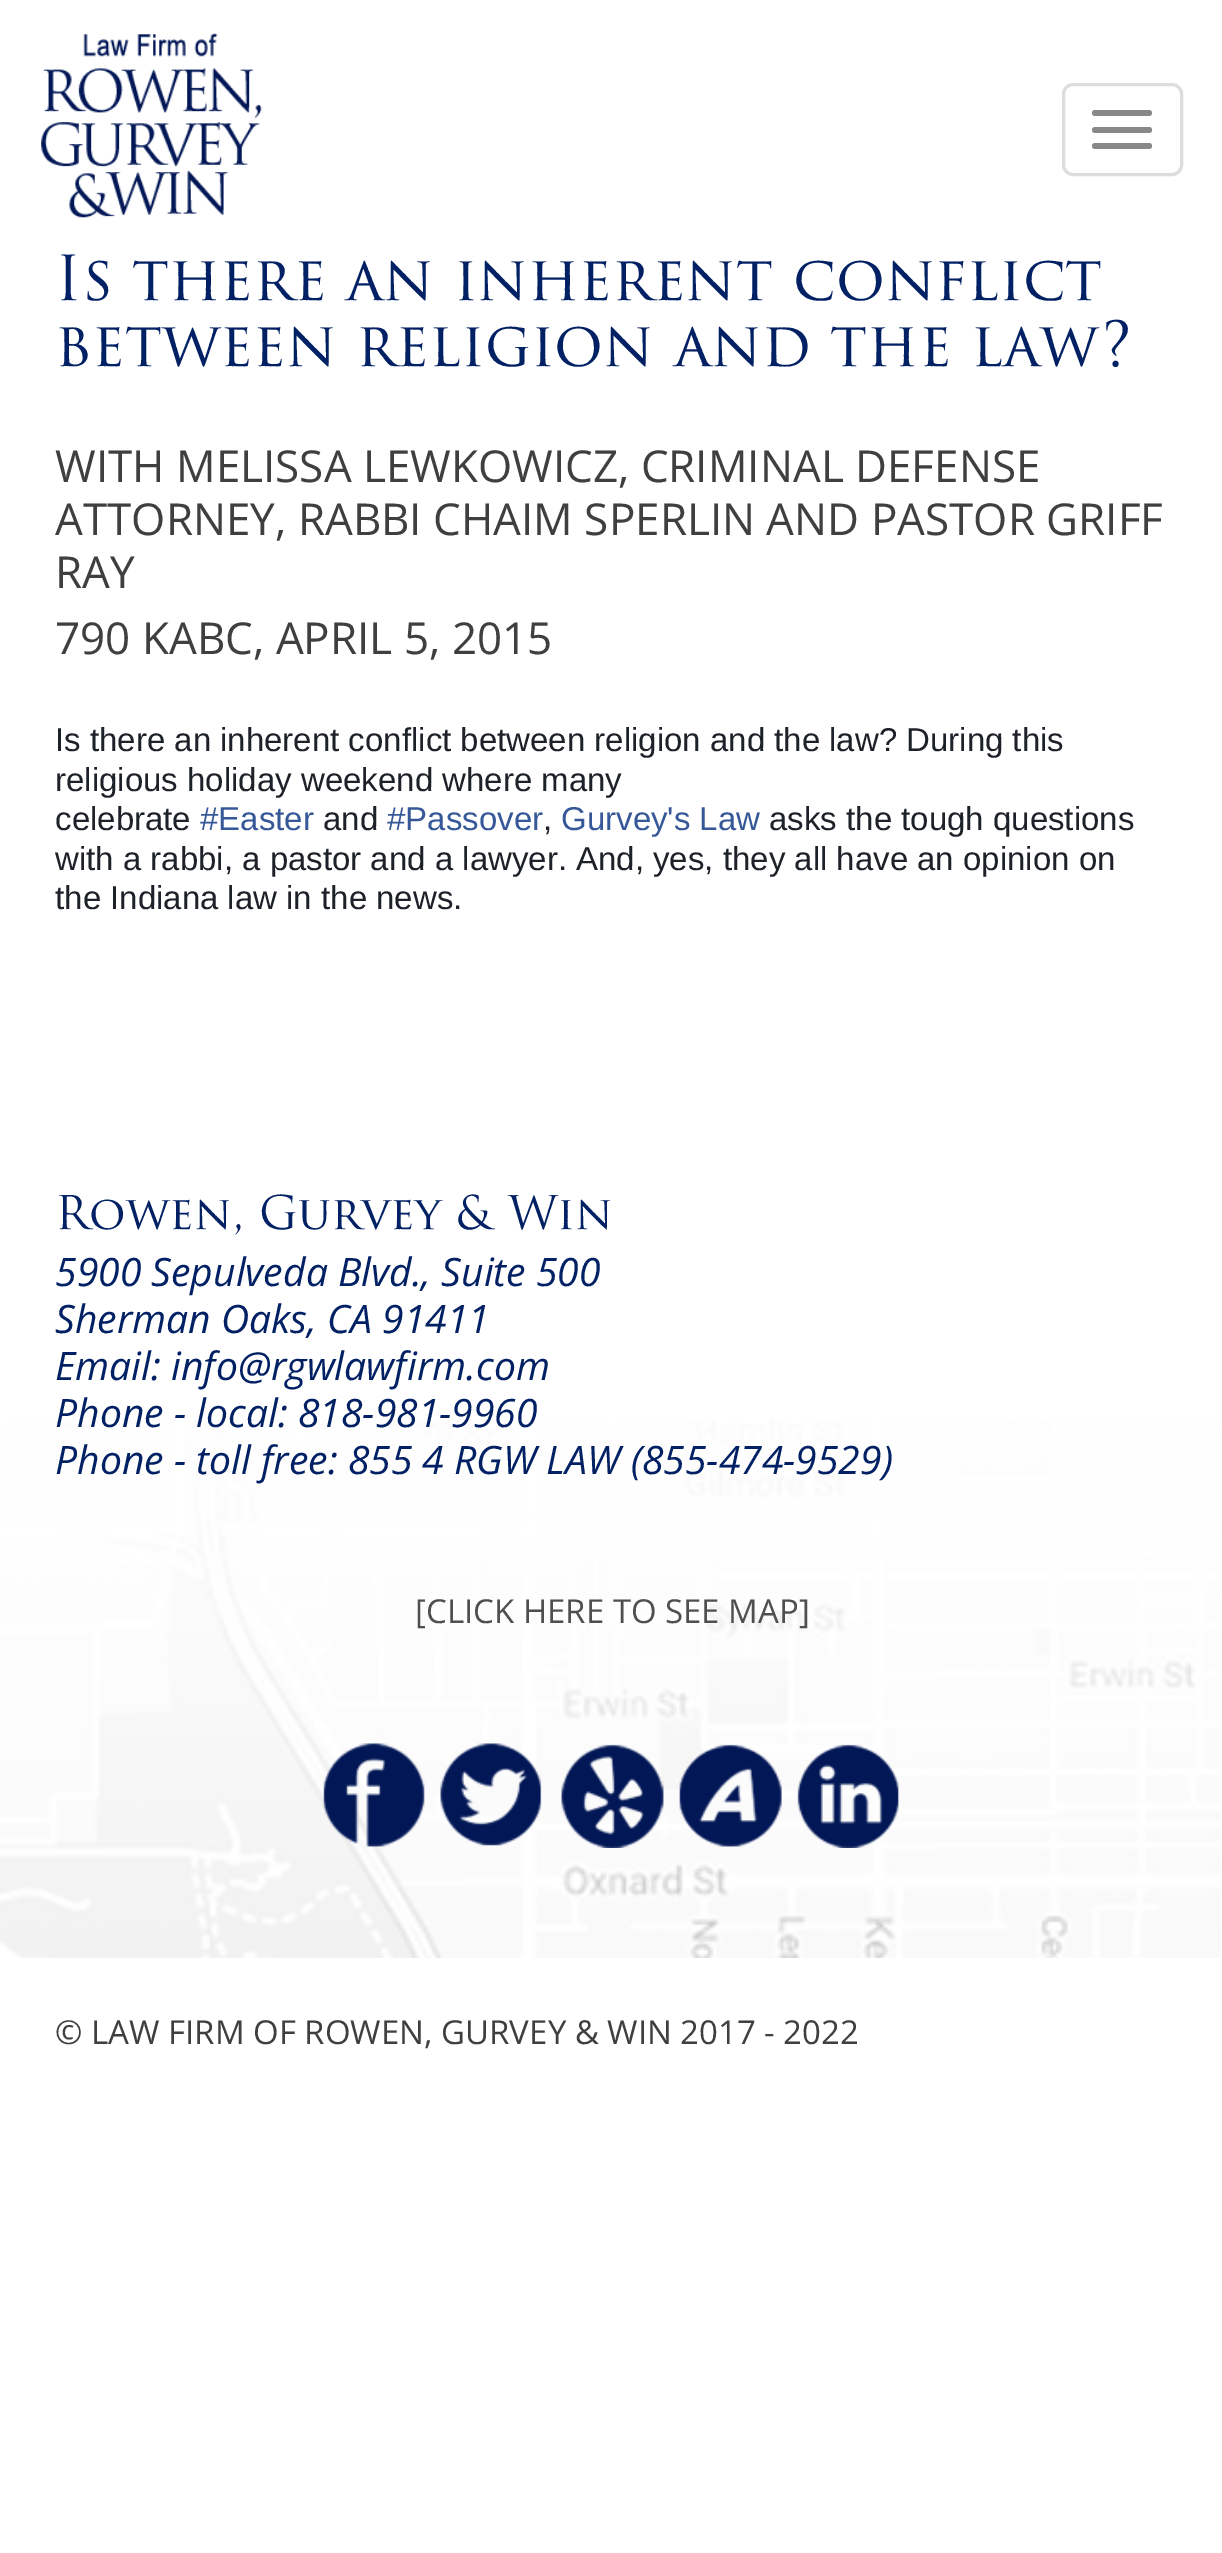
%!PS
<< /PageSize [1222 2553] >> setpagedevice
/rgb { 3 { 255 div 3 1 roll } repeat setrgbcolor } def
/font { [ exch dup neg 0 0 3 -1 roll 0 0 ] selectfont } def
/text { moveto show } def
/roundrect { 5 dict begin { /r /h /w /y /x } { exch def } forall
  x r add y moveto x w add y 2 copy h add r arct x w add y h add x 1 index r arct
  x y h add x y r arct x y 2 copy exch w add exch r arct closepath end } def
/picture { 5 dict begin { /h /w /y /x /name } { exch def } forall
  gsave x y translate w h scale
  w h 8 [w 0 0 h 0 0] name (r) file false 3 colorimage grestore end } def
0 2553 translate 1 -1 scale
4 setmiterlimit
255 255 255 rgb
0 0 1222 2553 rectfill
(img_01.rgb) 41 33 221 185 picture
221 221 221 rgb
3 setlinewidth
1063.5 84.5 118 90 9.5 roundrect stroke
136 136 136 rgb
1092 110 60 6 3 roundrect fill
1092 127 60 6 3 roundrect fill
1092 143 60 6 3 roundrect fill
(img_07.rgb) 0 1420 1221 538 picture
(img_02.rgb) 323 1743 102 104 picture
(img_03.rgb) 440 1743 102 103 picture
(img_04.rgb) 561 1744 103 104 picture
(img_05.rgb) 679 1744 103 103 picture
(img_06.rgb) 797 1744 102 104 picture
/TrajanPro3-Regular 60.5 font
2 33 101 rgb
(Is there an inherent conflict) 55 300 text
(between religion and the law?) 55 366 text
/OpenSans-Regular 44 font
63 63 63 rgb
(WITH MELISSA LEWKOWICZ, CRIMINAL DEFENSE) 55 482 text
(ATTORNEY, RABBI CHAIM SPERLIN AND PASTOR GRIFF) 55 535 text
(RAY) 55 588 text
(790 KABC, APRIL 5, 2015) 55 654 text
/LiberationSans-Regular 33 font
29 33 41 rgb
(Is there an inherent conflict between religion and the law? During this) 55 751 text
(religious holiday weekend where many) 55 791 text
(celebrate) 55 830 text
54 88 153 rgb
(#Easter) 200 830 text
29 33 41 rgb
(and) 323 830 text
54 88 153 rgb
(#Passover) 387 830 text
29 33 41 rgb
(,) 543 830 text
54 88 153 rgb
(Gurvey's Law) 561 830 text
29 33 41 rgb
(asks the tough questions) 769 830 text
(with a rabbi, a pastor and a lawyer. And, yes, they all have an opinion on) 55 870 text
(the Indiana law in the news.) 55 909 text
/TrajanPro3-Regular 45.25 font
2 33 101 rgb
(Rowen, Gurvey & Win) 55 1229 text
/OpenSans-Italic 39.1 font
(5900 Sepulveda Blvd., Suite 500) 55 1286 text
(Sherman Oaks, CA 91411) 55 1333 text
(Email: info@rgwlawfirm.com) 55 1380 text
(Phone - local: 818-981-9960) 55 1427 text
(Phone - toll free: 855 4 RGW LAW \(855-474-9529\)) 55 1474 text
/OpenSans-Regular 33 font
78 79 80 rgb
([CLICK HERE TO SEE MAP]) 415 1623 text
63 63 63 rgb
(© LAW FIRM OF ROWEN, GURVEY & WIN 2017 - 2022) 55 2044 text
showpage
